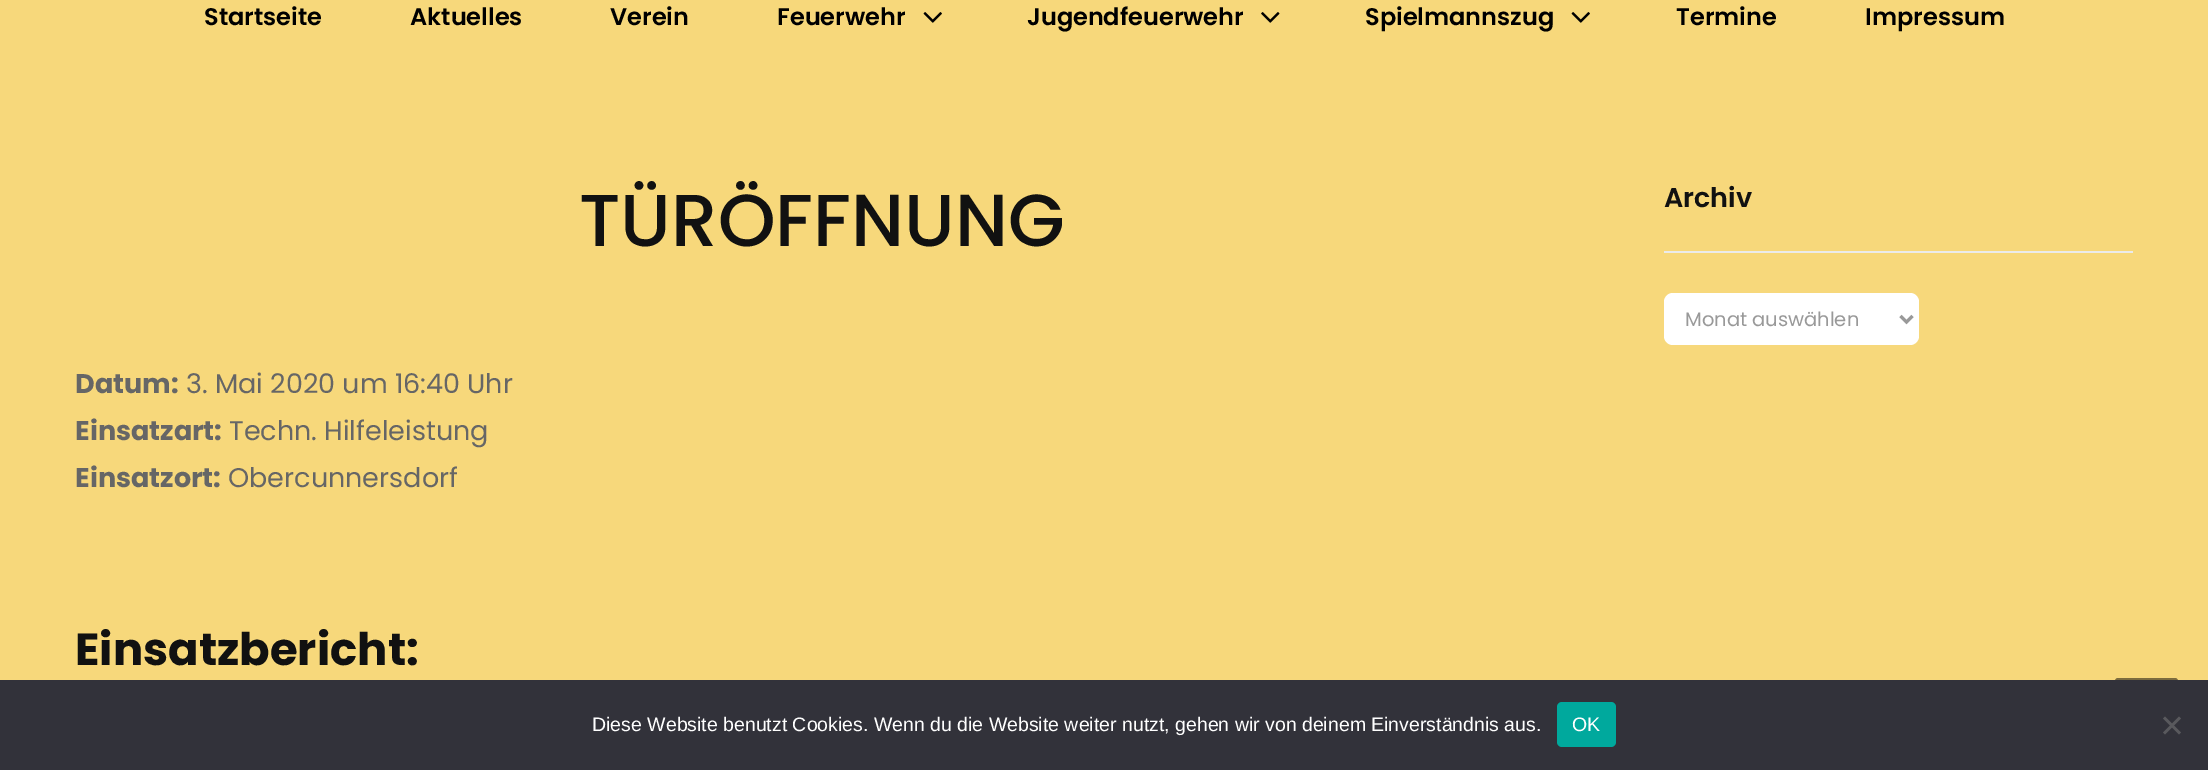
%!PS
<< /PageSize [2208 770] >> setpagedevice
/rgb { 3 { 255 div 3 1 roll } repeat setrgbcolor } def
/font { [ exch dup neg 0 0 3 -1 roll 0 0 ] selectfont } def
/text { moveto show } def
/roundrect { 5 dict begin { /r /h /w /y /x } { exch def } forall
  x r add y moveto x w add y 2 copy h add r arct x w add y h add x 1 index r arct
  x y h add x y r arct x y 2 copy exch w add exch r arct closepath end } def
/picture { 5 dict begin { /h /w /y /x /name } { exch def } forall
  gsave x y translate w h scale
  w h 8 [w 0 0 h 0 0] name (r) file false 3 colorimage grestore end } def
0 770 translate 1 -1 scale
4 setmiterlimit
247 216 123 rgb
0 0 2208 770 rectfill
(img_01.rgb) 923 12 19 11 picture
(img_02.rgb) 1261 12 19 11 picture
(img_01.rgb) 1571 12 19 11 picture
235 235 235 rgb
1664 251 469 2 rectfill
255 255 255 rgb
1664 293 255 52 9 roundrect fill
153 153 153 rgb
3 setlinewidth
1900.5 316 moveto 6 6 rlineto 6 -6 rlineto stroke
124 108 62 rgb
2115 678 63 63 3 roundrect fill
50 50 58 rgb
0 680 2208 90 rectfill
0 169 157 rgb
1557 702 59 45 5 roundrect fill
89 89 93 rgb
2179 716.5 moveto 2 2 rlineto -16 16 rlineto -2 -2 rlineto closepath fill
2163 718.5 moveto 2 -2 rlineto 16 16 rlineto -2 2 rlineto closepath fill
/Poppins-SemiBold 24 font
0 0 0 rgb
(Startseite) 204 25 text
(Aktuelles) 410 25 text
(Verein) 610 25 text
(Feuerwehr) 777 25 text
(Jugendfeuerwehr) 1027 25 text
(Spielmannszug) 1365 25 text
(Termine) 1676 25 text
(Impressum) 1865 25 text
/Poppins-Medium 73.5 font
17 17 17 rgb
(TÜRÖFFNUNG) 579 246 text
/Poppins-Bold 27 font
102 102 102 rgb
(Datum:) 75 393 text
/Poppins-Regular 27 font
(3. Mai 2020 um 16:40 Uhr) 186 393 text
/Poppins-Bold 27 font
(Einsatzart:) 75 440 text
/Poppins-Regular 27 font
(Techn. Hilfeleistung) 229 440 text
/Poppins-Bold 27 font
(Einsatzort:) 75 487 text
/Poppins-Regular 27 font
(Obercunnersdorf) 228 487 text
/Poppins-Bold 45 font
17 17 17 rgb
(Einsatzbericht:) 75 665 text
/Poppins-SemiBold 27 font
(Archiv) 1664 207 text
/Poppins-Regular 19.5 font
153 153 153 rgb
(Monat auswählen) 1685 326 text
/LiberationSans-Regular 19.5 font
255 255 255 rgb
(Diese Website benutzt Cookies. Wenn du die Website weiter nutzt, gehen wir von deinem Einverständnis aus.) 592 731 text
(OK) 1572 731 text
showpage
